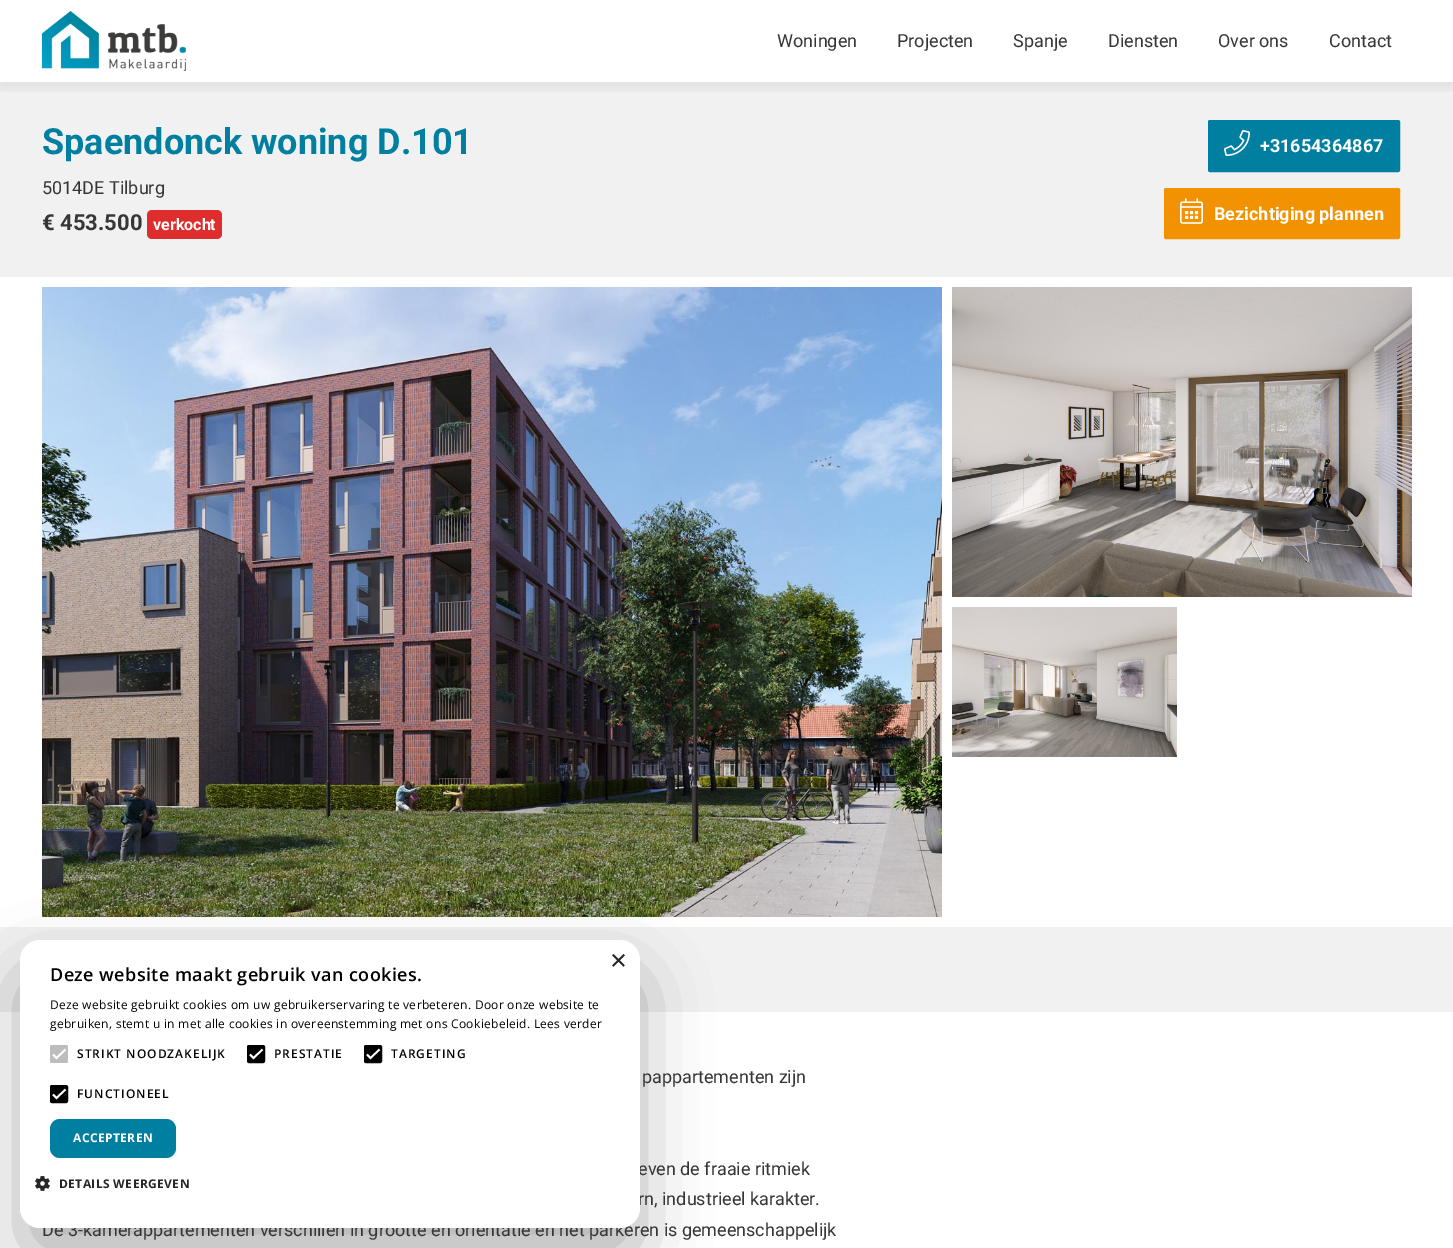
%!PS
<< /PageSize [1453 1248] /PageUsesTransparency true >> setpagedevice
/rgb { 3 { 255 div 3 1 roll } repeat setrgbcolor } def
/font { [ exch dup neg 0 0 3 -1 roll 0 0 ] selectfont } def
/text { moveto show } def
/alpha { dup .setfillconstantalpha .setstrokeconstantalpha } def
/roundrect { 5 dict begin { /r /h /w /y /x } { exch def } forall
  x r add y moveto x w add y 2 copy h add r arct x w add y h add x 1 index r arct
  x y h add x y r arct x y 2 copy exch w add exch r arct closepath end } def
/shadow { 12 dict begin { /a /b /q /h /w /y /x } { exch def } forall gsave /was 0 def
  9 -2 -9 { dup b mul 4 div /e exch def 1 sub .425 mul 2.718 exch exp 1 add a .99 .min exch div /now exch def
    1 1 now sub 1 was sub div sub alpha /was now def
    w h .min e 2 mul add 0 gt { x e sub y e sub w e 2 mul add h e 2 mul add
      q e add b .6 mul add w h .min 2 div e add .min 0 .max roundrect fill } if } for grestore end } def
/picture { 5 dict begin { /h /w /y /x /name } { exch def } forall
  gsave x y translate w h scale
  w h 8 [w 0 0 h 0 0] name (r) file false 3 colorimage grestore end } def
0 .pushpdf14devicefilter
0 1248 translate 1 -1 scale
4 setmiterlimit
255 255 255 rgb
0 0 1453 1248 rectfill
241 241 241 rgb
0 82 1453 195 rectfill
gsave
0 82 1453 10 rectclip
0 0 0 rgb
0 2 1453 82 0 10 0.1 shadow
grestore
(img_01.rgb) 41 11 145 60 picture
223 45 45 rgb
147 210 75 29 5 roundrect fill
0 127 160 rgb
1209 121 190 50 1 roundrect gsave fill grestore
2 setlinewidth
stroke
(img_02.rgb) 1224 130 26 26 picture
243 146 0 rgb
1165 189 234 49 1 roundrect gsave fill grestore
stroke
(img_03.rgb) 1180 198 23 26 picture
(img_04.rgb) 42 287 900 630 picture
(img_05.rgb) 952 287 460 310 picture
(img_06.rgb) 952 607 225 150 picture
241 241 241 rgb
0 927 1453 85 rectfill
0 0 0 rgb
20 972 620 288 20 34 0.3 shadow
/Roboto-Regular 18 font
54 54 54 rgb
(Woningen) 777 47 text
(Projecten) 897 47 text
(Spanje) 1013 47 text
(Diensten) 1108 47 text
(Over ons) 1218 47 text
(Contact) 1329 47 text
/Roboto-Bold 36 font
0 127 160 rgb
(Spaendonck woning D.101) 42 154 text
/Roboto-Regular 18 font
54 54 54 rgb
(5014DE Tilburg) 42 194 text
/Roboto-Bold 22 font
(€ 453.500) 42 230 text
/Roboto-Bold 16 font
255 255 255 rgb
(verkocht) 153 230 text
/Roboto-Bold 18 font
(+31654364867) 1260 152 text
(Bezichtiging plannen) 1214 220 text
/Roboto-Regular 18 font
54 54 54 rgb
(pappartementen zijn) 642 1083 text
(even de fraaie ritmiek) 638 1175 text
(rn, industrieel karakter.) 638 1205 text
(De 3-kamerappartementen verschillen in grootte en oriëntatie en het parkeren is gemeenschappelijk) 42 1236 text
255 255 255 rgb
20 940 620 288 20 roundrect fill
/LiberationSans-Regular 29 font
38 38 38 rgb
(×) 610 970 text
/OpenSans-SemiBold 18 font
0 0 0 rgb
50 981 moveto 0.4 0 (Deze website maakt gebruik van cookies.) ashow
/OpenSans-Regular 12 font
50 1009 moveto 0.3 0 (Deze website gebruikt cookies om uw gebruikerservaring te verbeteren. Door onze website te) ashow
50 1028 moveto 0.3 0 (gebruiken, stemt u in met alle cookies in overeenstemming met ons Cookiebeleid. Lees verder) ashow
189 189 189 rgb
50 1045 18 18 2 roundrect fill
255 255 255 rgb
1.8 setlinewidth
53 1054.5 moveto 3.5 3.5 rlineto 9 -8.5 rlineto stroke
/OpenSans-SemiBold 12 font
0 0 0 rgb
77 1058 moveto 1 0 (STRIKT NOODZAKELIJK) ashow
248 1046 16 16 1 roundrect gsave fill grestore
2 setlinewidth
stroke
255 255 255 rgb
1.8 setlinewidth
250 1054.5 moveto 3.5 3.5 rlineto 9 -8.5 rlineto stroke
0 0 0 rgb
274 1058 moveto 1 0 (PRESTATIE) ashow
365 1046 16 16 1 roundrect gsave fill grestore
2 setlinewidth
stroke
255 255 255 rgb
1.8 setlinewidth
367 1054.5 moveto 3.5 3.5 rlineto 9 -8.5 rlineto stroke
0 0 0 rgb
391 1058 moveto 1 0 (TARGETING) ashow
51 1086 16 16 1 roundrect gsave fill grestore
2 setlinewidth
stroke
255 255 255 rgb
1.8 setlinewidth
53 1094.5 moveto 3.5 3.5 rlineto 9 -8.5 rlineto stroke
0 0 0 rgb
77 1098 moveto 1 0 (FUNCTIONEEL) ashow
0 127 160 rgb
50 1119 126 39 10 roundrect fill
/OpenSans-Bold 12 font
255 255 255 rgb
73 1142 moveto 0.4 0 (ACCEPTEREN) ashow
(img_07.rgb) 35 1176 15 15 picture
38 38 38 rgb
59 1188 moveto 0.4 0 (DETAILS WEERGEVEN) ashow
.poppdf14devicefilter showpage
